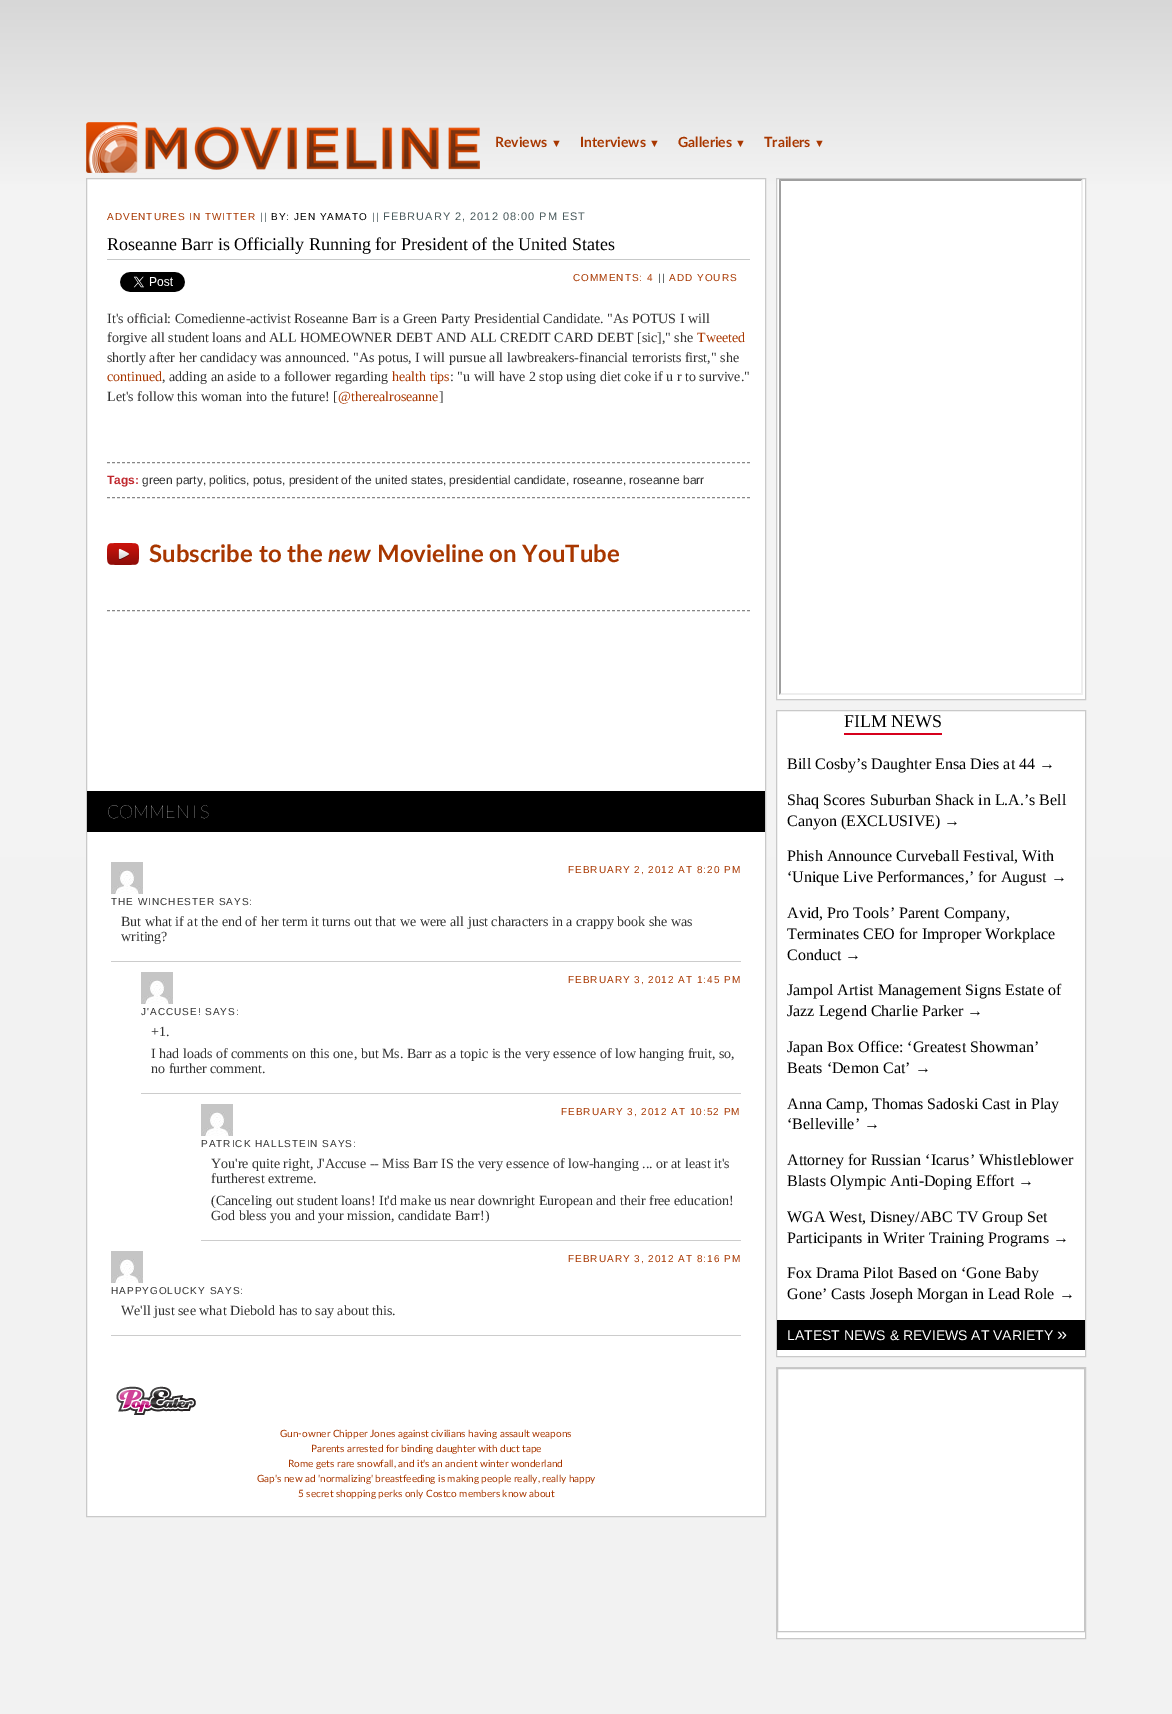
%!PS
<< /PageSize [1172 1714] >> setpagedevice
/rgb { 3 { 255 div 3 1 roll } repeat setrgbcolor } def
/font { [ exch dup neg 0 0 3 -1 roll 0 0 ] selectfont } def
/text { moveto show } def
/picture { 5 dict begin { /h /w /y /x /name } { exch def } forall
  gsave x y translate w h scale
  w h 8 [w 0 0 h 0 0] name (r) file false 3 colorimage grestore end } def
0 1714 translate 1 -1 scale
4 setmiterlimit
255 255 255 rgb
0 0 1172 1714 rectfill
gsave 0 0 moveto 1172 0 rlineto 0 1714 rlineto -1172 0 rlineto closepath clip newpath
<< /ShadingType 2 /ColorSpace /DeviceRGB /Coords [586 0 586 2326] /Extend [true true] /Function << /FunctionType 3 /Domain [0 1] /Functions [<< /FunctionType 2 /Domain [0 1] /C0 [0.843 0.843 0.843] /C1 [0.953 0.953 0.953] /N 1 >> << /FunctionType 2 /Domain [0 1] /C0 [0.953 0.953 0.953] /C1 [0.945 0.945 0.945] /N 1 >>] /Bounds [0.08] /Encode [0 1 0 1] >> >> shfill grestore
(img_01.rgb) 86 122 394 51 picture
86.5 178.5 moveto 679 0 rlineto 0 1338 rlineto -679 0 rlineto closepath gsave fill grestore
201 201 201 rgb
stroke
199 201 201 rgb
107 259 643 1 rectfill
(img_02.rgb) 120 272 65 20 picture
135 135 135 rgb
[3 2] 0 setdash
107 462.5 moveto 643 0 rlineto stroke
107 497.5 moveto 643 0 rlineto stroke
107 610.5 moveto 643 0 rlineto stroke
(img_03.rgb) 107 543 32 22 picture
0 0 0 rgb
87 791 678 41 rectfill
204 204 204 rgb
111 961 630 1 rectfill
(img_04.rgb) 111 862 32 32 picture
141 1093 600 1 rectfill
(img_04.rgb) 141 972 32 32 picture
201 1240 540 1 rectfill
(img_04.rgb) 201 1104 32 32 picture
111 1335 630 1 rectfill
(img_04.rgb) 111 1251 32 32 picture
(img_05.rgb) 116 1386 80 29 picture
255 255 255 rgb
776.5 178.5 moveto 309 0 rlineto 0 521 rlineto -309 0 rlineto closepath gsave fill grestore
201 201 201 rgb
[] 0 setdash
stroke
159 159 159 rgb
779 179 moveto 304 0 rlineto -2 2 rlineto -300 0 rlineto closepath fill
238 238 238 rgb
1083 179 moveto 0 516 rlineto -2 -2 rlineto 0 -512 rlineto closepath fill
1083 695 moveto -304 0 rlineto 2 -2 rlineto 300 0 rlineto closepath fill
159 159 159 rgb
779 695 moveto 0 -516 rlineto 2 2 rlineto 0 512 rlineto closepath fill
255 255 255 rgb
776.5 710.5 moveto 309 0 rlineto 0 646 rlineto -309 0 rlineto closepath gsave fill grestore
201 201 201 rgb
stroke
214 0 28 rgb
844 733 98 2 rectfill
0 0 0 rgb
777 1320 308 30 rectfill
255 255 255 rgb
777 1369 308 269 rectfill
201 201 201 rgb
776.5 1367.5 309 271 rectstroke
198 198 198 rgb
777.5 1368.5 307 263 rectstroke
/Lato-Bold 14 font
168 55 0 rgb
(Reviews) 495 147 text
/LiberationSans-Bold 11 font
(▼) 551 147 text
/Lato-Bold 14 font
(Interviews) 580 147 text
/LiberationSans-Bold 11 font
(▼) 649 147 text
/Lato-Bold 14 font
(Galleries) 678 147 text
/LiberationSans-Bold 11 font
(▼) 735 147 text
/Lato-Bold 14 font
(Trailers) 764 147 text
/LiberationSans-Bold 11 font
(▼) 814 147 text
/LiberationSans-Regular 10 font
107 220 moveto 1 0 (ADVENTURES IN TWITTER) ashow
73 90 92 rgb
260 220 moveto 1 0 (||) ashow
0 0 0 rgb
271 220 moveto 1 0 (BY: JEN YAMATO) ashow
73 90 92 rgb
372 220 moveto 1 0 (||) ashow
/LiberationSans-Regular 11 font
383 220 moveto 1 0 (FEBRUARY 2, 2012 08:00 PM EST) ashow
/LiberationSerif-Regular 18 font
0 0 0 rgb
(Roseanne Barr is Officially Running for President of the United States) 107 250 text
/LiberationSans-Regular 10 font
168 55 0 rgb
573 281 moveto 1 0 (COMMENTS: 4) ashow
42 52 53 rgb
658 281 moveto 1 0 (||) ashow
168 55 0 rgb
669 281 moveto 1 0 (ADD YOURS) ashow
/LiberationSerif-Regular 14 font
51 51 51 rgb
(It's official: Comedienne-activist Roseanne Barr is a Green Party Presidential Candidate. "As POTUS I will) 107 323 text
(forgive all student loans and ALL HOMEOWNER DEBT AND ALL CREDIT CARD DEBT [sic]," she) 107 342 text
168 55 0 rgb
(Tweeted) 697 342 text
51 51 51 rgb
(shortly after her candidacy was announced. "As potus, I will pursue all lawbreakers-financial terrorists first," she) 107 362 text
168 55 0 rgb
(continued) 107 381 text
51 51 51 rgb
(, adding an aside to a follower regarding) 162 381 text
168 55 0 rgb
(health tips) 392 381 text
51 51 51 rgb
(: "u will have 2 stop using diet coke if u r to survive.") 450 381 text
(Let's follow this woman into the future! [) 107 401 text
168 55 0 rgb
(@therealroseanne) 338 401 text
51 51 51 rgb
(]) 439 401 text
/LiberationSans-Bold 12 font
192 39 45 rgb
(Tags:) 107 484 text
/LiberationSans-Regular 12 font
51 51 51 rgb
(green party, politics, potus, president of the united states, presidential candidate, roseanne, roseanne barr) 142 484 text
/Lato-Bold 24 font
168 55 0 rgb
(Subscribe to the) 149 562 text
/Lato-BoldItalic 24 font
(new) 328 562 text
/Lato-Bold 24 font
(Movieline on YouTube) 377 562 text
/Lato-ExtraLight 18 font
255 255 255 rgb
(COMMENTS) 107 818 text
/LiberationSans-Regular 10 font
168 55 0 rgb
568 873 moveto 1 0 (FEBRUARY 2, 2012 AT 8:20 PM) ashow
51 51 51 rgb
111 905 moveto 1 0 (THE WINCHESTER SAYS:) ashow
/LiberationSerif-Regular 14 font
(But what if at the end of her term it turns out that we were all just characters in a crappy book she was) 121 926 text
(writing?) 121 941 text
/LiberationSans-Regular 10 font
168 55 0 rgb
568 983 moveto 1 0 (FEBRUARY 3, 2012 AT 1:45 PM) ashow
51 51 51 rgb
141 1015 moveto 1 0 (J'ACCUSE! SAYS:) ashow
/LiberationSerif-Regular 14 font
(+1.) 151 1036 text
(I had loads of comments on this one, but Ms. Barr as a topic is the very essence of low hanging fruit, so,) 151 1058 text
(no further comment.) 151 1073 text
/LiberationSans-Regular 10 font
168 55 0 rgb
561 1115 moveto 1 0 (FEBRUARY 3, 2012 AT 10:52 PM) ashow
51 51 51 rgb
201 1147 moveto 1 0 (PATRICK HALLSTEIN SAYS:) ashow
/LiberationSerif-Regular 14 font
(You're quite right, J'Accuse -- Miss Barr IS the very essence of low-hanging ... or at least it's) 211 1168 text
(furtherest extreme.) 211 1183 text
(\(Canceling out student loans! It'd make us near downright European and their free education!) 211 1205 text
(God bless you and your mission, candidate Barr!\)) 211 1220 text
/LiberationSans-Regular 10 font
168 55 0 rgb
568 1262 moveto 1 0 (FEBRUARY 3, 2012 AT 8:16 PM) ashow
51 51 51 rgb
111 1294 moveto 1 0 (HAPPYGOLUCKY SAYS:) ashow
/LiberationSerif-Regular 14 font
(We'll just see what Diebold has to say about this.) 121 1315 text
/Lato-Regular 10 font
168 55 0 rgb
(Gun-owner Chipper Jones against civilians having assault weapons) 280 1437 text
(Parents arrested for binding daughter with duct tape) 311 1452 text
(Rome gets rare snowfall, and it's an ancient winter wonderland) 288 1467 text
(Gap's new ad 'normalizing' breastfeeding is making people really, really happy) 257 1482 text
(5 secret shopping perks only Costco members know about) 298 1497 text
/LiberationSerif-Regular 18 font
0 0 0 rgb
(FILM NEWS) 844 727 text
/LiberationSerif-Regular 16 font
(Bill Cosby’s Daughter Ensa Dies at 44 →) 787 769 text
(Shaq Scores Suburban Shack in L.A.’s Bell) 787 805 text
(Canyon \(EXCLUSIVE\) →) 787 826 text
(Phish Announce Curveball Festival, With) 787 861 text
(‘Unique Live Performances,’ for August →) 787 882 text
(Avid, Pro Tools’ Parent Company,) 787 918 text
(Terminates CEO for Improper Workplace) 787 939 text
(Conduct →) 787 960 text
(Jampol Artist Management Signs Estate of) 787 995 text
(Jazz Legend Charlie Parker →) 787 1016 text
(Japan Box Office: ‘Greatest Showman’) 787 1052 text
(Beats ‘Demon Cat’ →) 787 1073 text
(Anna Camp, Thomas Sadoski Cast in Play) 787 1109 text
(‘Belleville’ →) 787 1129 text
(Attorney for Russian ‘Icarus’ Whistleblower) 787 1165 text
(Blasts Olympic Anti-Doping Effort →) 787 1186 text
(WGA West, Disney/ABC TV Group Set) 787 1222 text
(Participants in Writer Training Programs →) 787 1243 text
(Fox Drama Pilot Based on ‘Gone Baby) 787 1278 text
(Gone’ Casts Joseph Morgan in Lead Role →) 787 1299 text
/LiberationSans-Regular 14 font
255 255 255 rgb
(LATEST NEWS & REVIEWS AT VARIETY) 787 1340 text
/LiberationSans-Regular 18 font
(») 1057 1340 text
showpage
